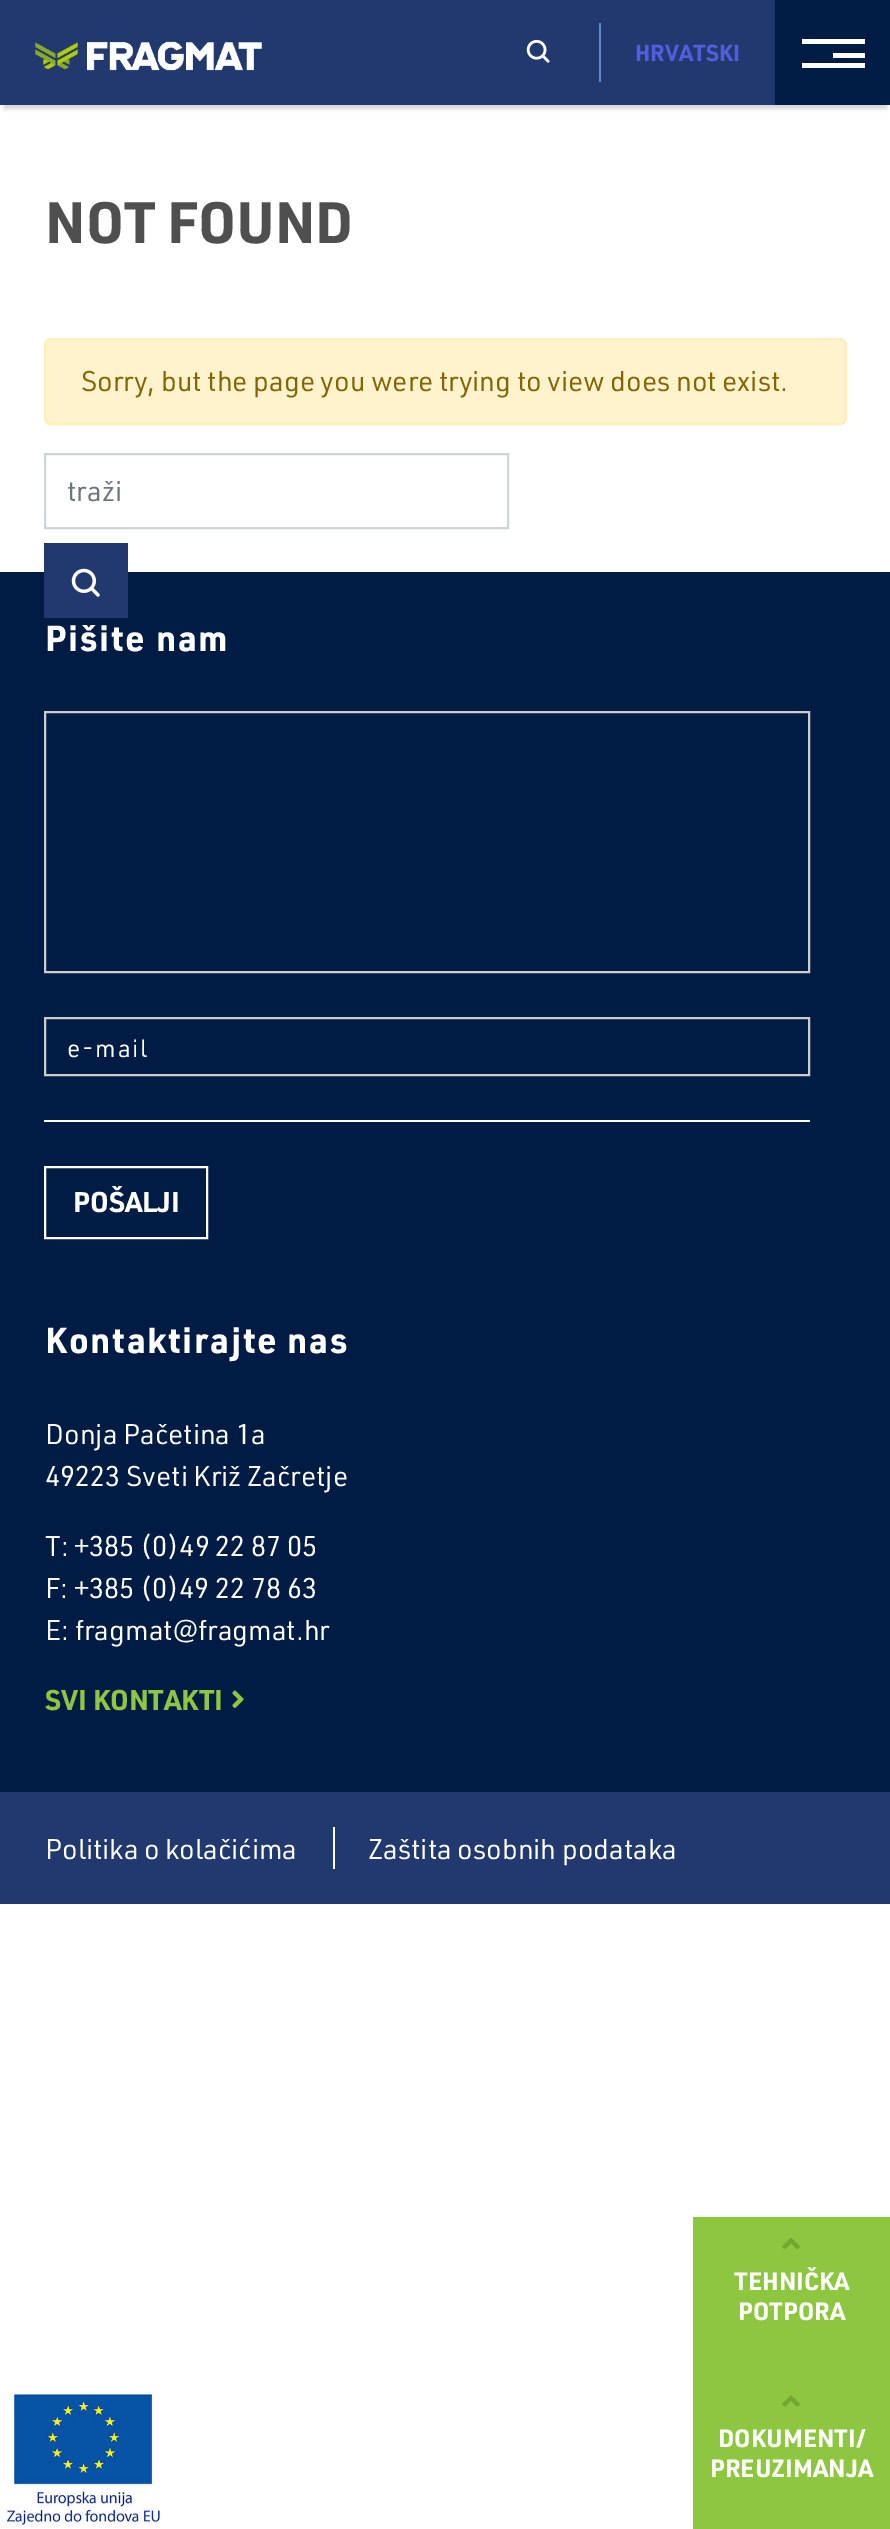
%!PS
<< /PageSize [890 2529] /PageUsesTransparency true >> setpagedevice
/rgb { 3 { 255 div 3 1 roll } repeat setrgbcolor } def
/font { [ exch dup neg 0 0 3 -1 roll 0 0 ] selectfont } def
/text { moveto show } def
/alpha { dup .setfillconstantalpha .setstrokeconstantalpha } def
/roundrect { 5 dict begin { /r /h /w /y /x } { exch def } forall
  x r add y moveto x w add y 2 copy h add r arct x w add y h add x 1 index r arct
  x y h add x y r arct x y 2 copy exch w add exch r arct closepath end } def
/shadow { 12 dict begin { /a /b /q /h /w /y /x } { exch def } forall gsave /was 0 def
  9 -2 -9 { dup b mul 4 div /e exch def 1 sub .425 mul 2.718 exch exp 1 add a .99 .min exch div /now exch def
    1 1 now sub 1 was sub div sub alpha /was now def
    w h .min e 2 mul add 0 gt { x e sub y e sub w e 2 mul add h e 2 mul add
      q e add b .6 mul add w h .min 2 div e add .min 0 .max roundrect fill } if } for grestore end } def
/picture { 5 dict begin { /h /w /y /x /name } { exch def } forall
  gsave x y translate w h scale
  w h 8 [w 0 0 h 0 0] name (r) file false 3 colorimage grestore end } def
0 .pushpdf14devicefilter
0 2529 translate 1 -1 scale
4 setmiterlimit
255 255 255 rgb
0 0 890 2529 rectfill
0 0 0 rgb
4 11 883 98 0 2 0.16 shadow
33 57 110 rgb
0 0 775 105 rectfill
(img_01.rgb) 35 41 227 30 picture
(img_02.rgb) 526 39 24 24 picture
92 136 204 rgb
599 23 2 59 rectfill
0 27 68 rgb
775 0 115 105 rectfill
255 255 255 rgb
802 39 63 5 rectfill
833 53 32 5 rectfill
802 63 63 5 rectfill
255 243 205 rgb
45 339 801 85 6 roundrect gsave fill grestore
255 238 186 rgb
2 setlinewidth
stroke
206 212 218 rgb
45 454 463 74 rectstroke
0 27 68 rgb
0 572 890 1220 rectfill
33 57 110 rgb
44 543 84 75 rectfill
(img_03.rgb) 71 568 29 29 picture
0 25 63 rgb
46 713 763 1 rectfill
204 204 204 rgb
45 712 764 260 rectstroke
255 255 255 rgb
44 1120 766 2 rectfill
0 25 63 rgb
46 1019 763 2 rectfill
204 204 204 rgb
45 1018 764 57 rectstroke
255 255 255 rgb
45 1167 162 71 rectstroke
(img_04.rgb) 232 1690 12 18 picture
33 57 110 rgb
0 1792 890 112 rectfill
255 255 255 rgb
333 1827 2 42 rectfill
(img_05.rgb) 5 2392 156 133 picture
141 198 63 rgb
693 2217 197 312 rectfill
(img_06.rgb) 782 2238 18 11 picture
(img_07.rgb) 782 2395 18 12 picture
/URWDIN-Bold 22.75 font
82 93 220 rgb
(HRVATSKI) 635 61 text
/URWDIN-Bold 57 font
79 79 79 rgb
(NOT FOUND) 45 243 text
/URWDIN-Regular 28 font
133 100 4 rgb
(Sorry, but the page you were trying to view does not exist.) 81 391 text
108 117 125 rgb
(traži) 67 501 text
/URWDIN-Bold 35.5 font
255 255 255 rgb
45 651 moveto 1.75 0 (Pišite nam) ashow
/URWDIN-Regular 24.5 font
67 1057 moveto 1.75 0 (e-mail) ashow
/URWDIN-Bold 28 font
(POŠALJI) 73 1212 text
/URWDIN-Bold 35.5 font
45 1353 moveto 1.75 0 (Kontaktirajte nas) ashow
/URWDIN-Regular 28 font
(Donja Pačetina 1a) 45 1444 text
(49223 Sveti Križ Začretje) 45 1486 text
(T: +385 \(0\)49 22 87 05) 45 1556 text
(F: +385 \(0\)49 22 78 63) 45 1598 text
(E: fragmat@fragmat.hr) 45 1640 text
/URWDIN-Bold 28 font
141 198 63 rgb
(SVI KONTAKTI) 45 1710 text
/URWDIN-Regular 28 font
255 255 255 rgb
(Politika o kolačićima) 45 1859 text
(Zaštita osobnih podataka) 368 1859 text
/URWDIN-Bold 24.5 font
(TEHNIČKA) 734 2290 text
(POTPORA) 738 2320 text
(DOKUMENTI/) 718 2447 text
(PREUZIMANJA) 710 2477 text
.poppdf14devicefilter showpage
